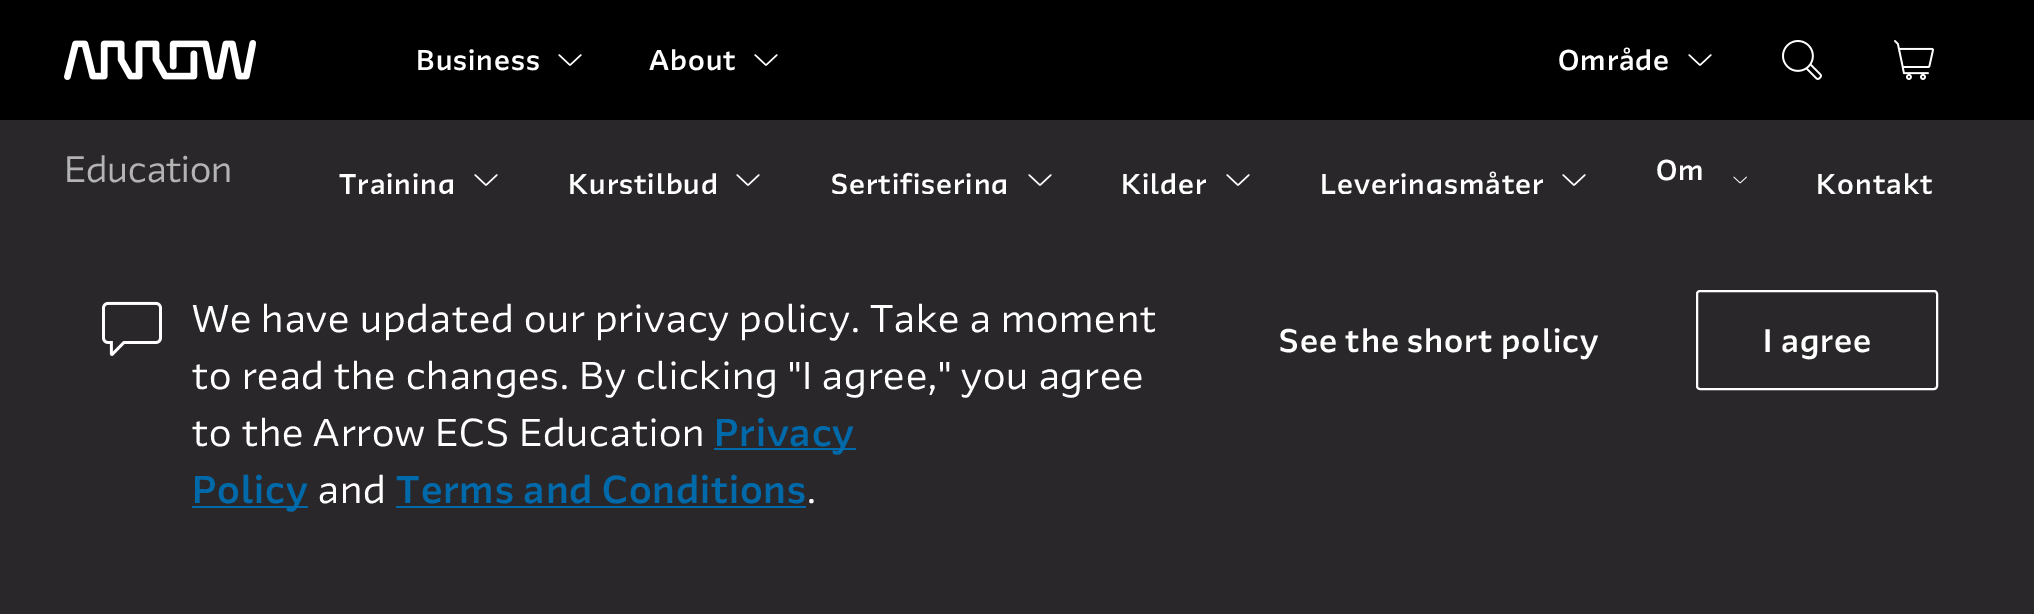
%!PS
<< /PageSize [2034 614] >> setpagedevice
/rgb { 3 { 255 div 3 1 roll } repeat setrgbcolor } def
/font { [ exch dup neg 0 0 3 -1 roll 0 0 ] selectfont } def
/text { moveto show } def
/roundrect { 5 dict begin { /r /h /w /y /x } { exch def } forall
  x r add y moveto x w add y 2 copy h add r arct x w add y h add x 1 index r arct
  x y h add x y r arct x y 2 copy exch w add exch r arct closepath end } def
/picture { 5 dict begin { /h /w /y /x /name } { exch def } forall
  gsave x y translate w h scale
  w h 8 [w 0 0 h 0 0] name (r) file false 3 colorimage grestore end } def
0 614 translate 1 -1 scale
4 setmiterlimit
41 39 42 rgb
0 0 2034 614 rectfill
0 0 0 rgb
0 0 2034 120 rectfill
(img_01.rgb) 64 40 192 40 picture
(img_02.rgb) 558 54 24 12 picture
(img_02.rgb) 754 54 24 12 picture
(img_02.rgb) 1688 54 24 12 picture
(img_03.rgb) 1782 40 40 40 picture
(img_04.rgb) 1894 40 40 40 picture
(img_05.rgb) 474 174 24 12 picture
(img_05.rgb) 736 174 24 12 picture
(img_05.rgb) 1028 174 24 12 picture
(img_05.rgb) 1226 174 24 12 picture
(img_05.rgb) 1562 174 24 12 picture
(img_06.rgb) 1733 176 14 8 picture
(img_07.rgb) 102 301 60 55 picture
0 105 170 rgb
714 448 142 2 rectfill
192 506 116 2 rectfill
396 506 410 2 rectfill
255 255 255 rgb
2 setlinewidth
1697 291 240 98 3 roundrect stroke
/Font-Medium 28 font
416 70 moveto 1 0 (Business) ashow
649 70 moveto 1 0 (About) ashow
1558 70 moveto 1 0 (Område) ashow
/Font-Regular 36 font
179 179 179 rgb
(Education) 64 182 text
/Font-Medium 28 font
255 255 255 rgb
339 194 moveto 1 0 (Training) ashow
568 194 moveto 1 0 (Kurstilbud) ashow
831 194 moveto 1 0 (Sertifisering) ashow
1121 194 moveto 1 0 (Kilder) ashow
1320 194 moveto 1 0 (Leveringsmåter) ashow
1656 180 moveto 1 0 (Om) ashow
1816 194 moveto 1 0 (Kontakt) ashow
41 39 42 rgb
372 194 1558 7 rectfill
/Font-Regular 38 font
255 255 255 rgb
192 332 moveto 1 0 (We have updated our privacy policy. Take a moment) ashow
192 389 moveto 1 0 (to read the changes. By clicking "I agree," you agree) ashow
192 446 moveto 1 0 (to the Arrow ECS Education) ashow
/Font-Medium 38 font
0 105 170 rgb
714 446 moveto 1 0 (Privacy) ashow
192 503 moveto 1 0 (Policy) ashow
/Font-Regular 38 font
255 255 255 rgb
318 503 moveto 1 0 (and) ashow
/Font-Medium 38 font
0 105 170 rgb
396 503 moveto 1 0 (Terms and Conditions) ashow
/Font-Regular 38 font
255 255 255 rgb
807 503 moveto 1 0 (.) ashow
/Font-Medium 32 font
1279 352 moveto 1 0 (See the short policy) ashow
1763 352 moveto 1 0 (I agree) ashow
showpage
